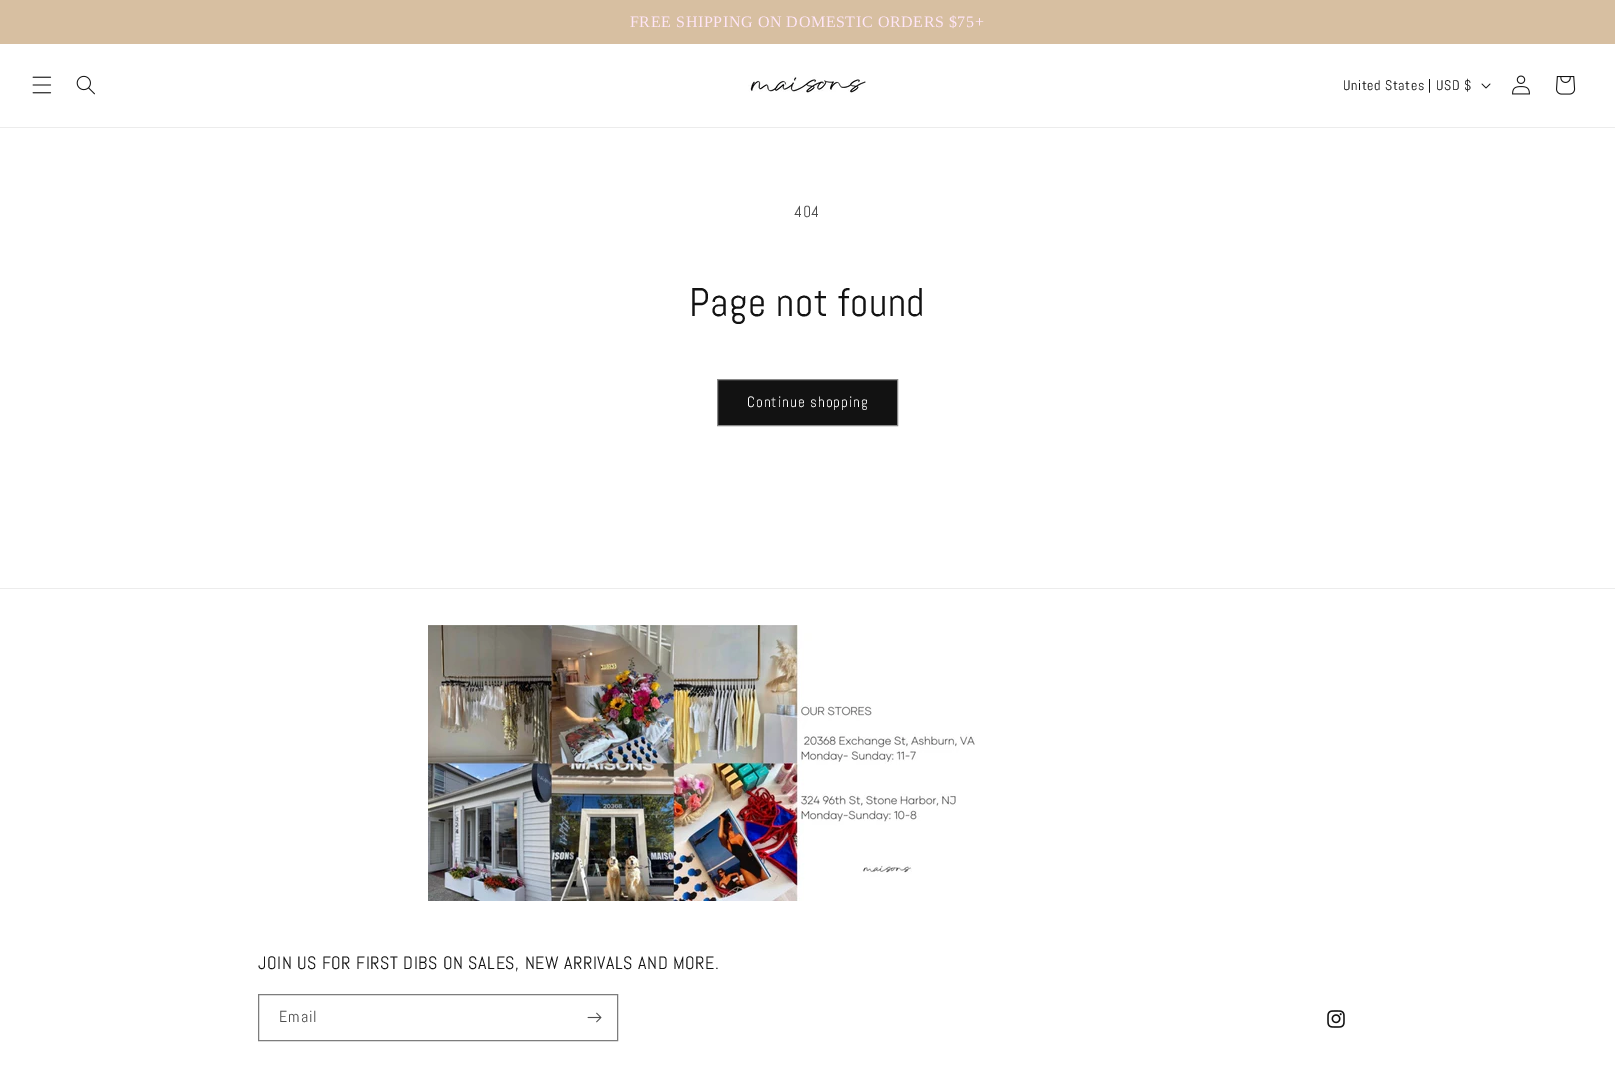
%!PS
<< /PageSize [1615 1067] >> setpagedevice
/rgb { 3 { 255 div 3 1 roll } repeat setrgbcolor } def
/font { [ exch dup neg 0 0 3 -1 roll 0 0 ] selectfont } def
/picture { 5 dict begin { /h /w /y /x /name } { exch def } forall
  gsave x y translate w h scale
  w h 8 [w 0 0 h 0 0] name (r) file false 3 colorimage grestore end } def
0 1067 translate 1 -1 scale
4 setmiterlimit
255 255 255 rgb
0 0 1615 1067 rectfill
215 191 161 rgb
0 0 1615 44 rectfill
236 236 236 rgb
0 127 1615 1 rectfill
(img_01.rgb) 32 76 20 18 picture
(img_02.rgb) 76 75 19 20 picture
(img_03.rgb) 748 76 118 17 picture
(img_04.rgb) 1481 83 10 6 picture
(img_05.rgb) 1512 75 18 20 picture
(img_06.rgb) 1556 76 20 19 picture
18 18 18 rgb
718 380 179 45 rectfill
137 137 137 rgb
717.5 379.5 180 46 rectstroke
236 236 236 rgb
0 588 1615 1 rectfill
(img_07.rgb) 428 625 548 276 picture
125 125 125 rgb
258.5 994.5 359 46 rectstroke
(img_08.rgb) 587 1012 15 11 picture
(img_09.rgb) 1327 1010 18 18 picture
/LiberationSerif-Regular 16 font
255 230 248 rgb
630 27 moveto 0.6 0 (FREE SHIPPING ON DOMESTIC ORDERS $75+) ashow
/Abel-Regular 14 font
18 18 18 rgb
1343 90 moveto 0.6 0 (United States | USD $) ashow
/Abel-Regular 16 font
77 77 77 rgb
794 217 moveto 0.6 0 (404) ashow
/Abel-Regular 40 font
18 18 18 rgb
689 316 moveto 0.6 0 (Page not found) ashow
/Abel-Regular 15 font
255 255 255 rgb
747 407 moveto 1 0 (Continue shopping) ashow
/Abel-Regular 18 font
18 18 18 rgb
258 969 moveto 0.6 0 (JOIN US FOR FIRST DIBS ON SALES, NEW ARRIVALS AND MORE.) ashow
/Abel-Regular 16 font
77 77 77 rgb
279 1022 moveto 1 0 (Email) ashow
showpage
